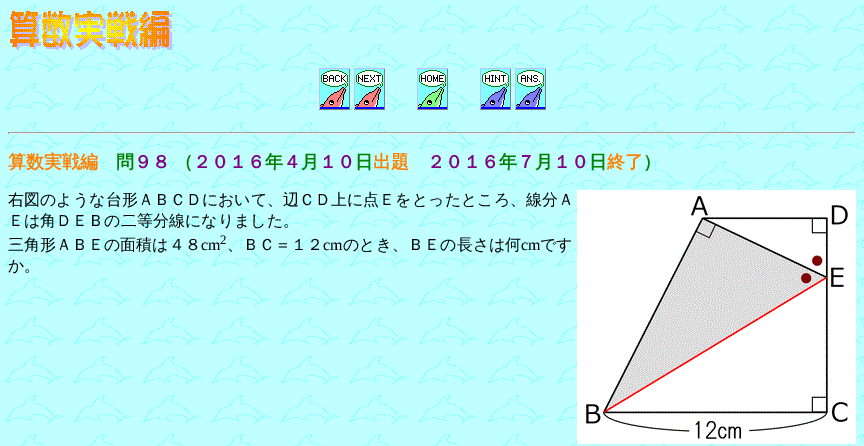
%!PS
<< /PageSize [864 446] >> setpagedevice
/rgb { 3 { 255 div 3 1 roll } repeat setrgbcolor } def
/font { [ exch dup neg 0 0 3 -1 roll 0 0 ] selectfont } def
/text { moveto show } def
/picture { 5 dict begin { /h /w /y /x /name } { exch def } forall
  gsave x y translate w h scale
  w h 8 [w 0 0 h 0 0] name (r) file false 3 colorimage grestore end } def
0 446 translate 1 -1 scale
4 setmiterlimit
255 255 255 rgb
0 0 864 446 rectfill
(img_01.rgb) 0 0 864 446 picture
(img_02.rgb) 10 11 162 39 picture
(img_03.rgb) 319 68 31 42 picture
(img_04.rgb) 354 68 31 42 picture
(img_05.rgb) 417 68 31 42 picture
(img_06.rgb) 480 68 31 42 picture
(img_07.rgb) 515 68 31 42 picture
159 159 159 rgb
8 132 848 1 rectfill
238 238 238 rgb
855 132 1 2 rectfill
8 133 848 1 rectfill
159 159 159 rgb
8 132 1 2 rectfill
(img_08.rgb) 577 190 279 254 picture
/WenQuanYiZenHei-Bold 18 font
255 128 0 rgb
(算数実戦編) 8 168 text
0 128 0 rgb
(問) 116 168 text
128 0 128 rgb
(９８) 134 168 text
0 128 0 rgb
(（) 175 168 text
128 0 128 rgb
(２０１６) 193 168 text
0 128 0 rgb
(年) 265 168 text
128 0 128 rgb
(４) 283 168 text
0 128 0 rgb
(月) 301 168 text
128 0 128 rgb
(１０) 319 168 text
0 128 0 rgb
(日) 355 168 text
255 128 0 rgb
(出題) 373 168 text
128 0 128 rgb
(２０１６) 427 168 text
0 128 0 rgb
(年) 499 168 text
128 0 128 rgb
(７) 517 168 text
0 128 0 rgb
(月) 535 168 text
128 0 128 rgb
(１０) 553 168 text
0 128 0 rgb
(日) 589 168 text
255 128 0 rgb
(終了) 607 168 text
0 128 0 rgb
(）) 643 168 text
/WenQuanYiZenHei-Medium 16 font
0 0 0 rgb
(右図のような台形ＡＢＣＤにおいて、辺ＣＤ上に点Ｅをとったところ、線分Ａ) 8 205 text
(Ｅは角ＤＥＢの二等分線になりました。) 8 226 text
(三角形ＡＢＥの面積は４８) 8 250 text
/LiberationSerif-Regular 16 font
(cm) 201 250 text
/LiberationSerif-Regular 13 font
(2) 220 244 text
/WenQuanYiZenHei-Medium 16 font
(、ＢＣ＝１２) 227 250 text
/LiberationSerif-Regular 16 font
(cm) 323 250 text
/WenQuanYiZenHei-Medium 16 font
(のとき、ＢＥの長さは何) 343 250 text
/LiberationSerif-Regular 16 font
(cm) 521 250 text
/WenQuanYiZenHei-Medium 16 font
(です) 540 250 text
(か。) 8 271 text
showpage
